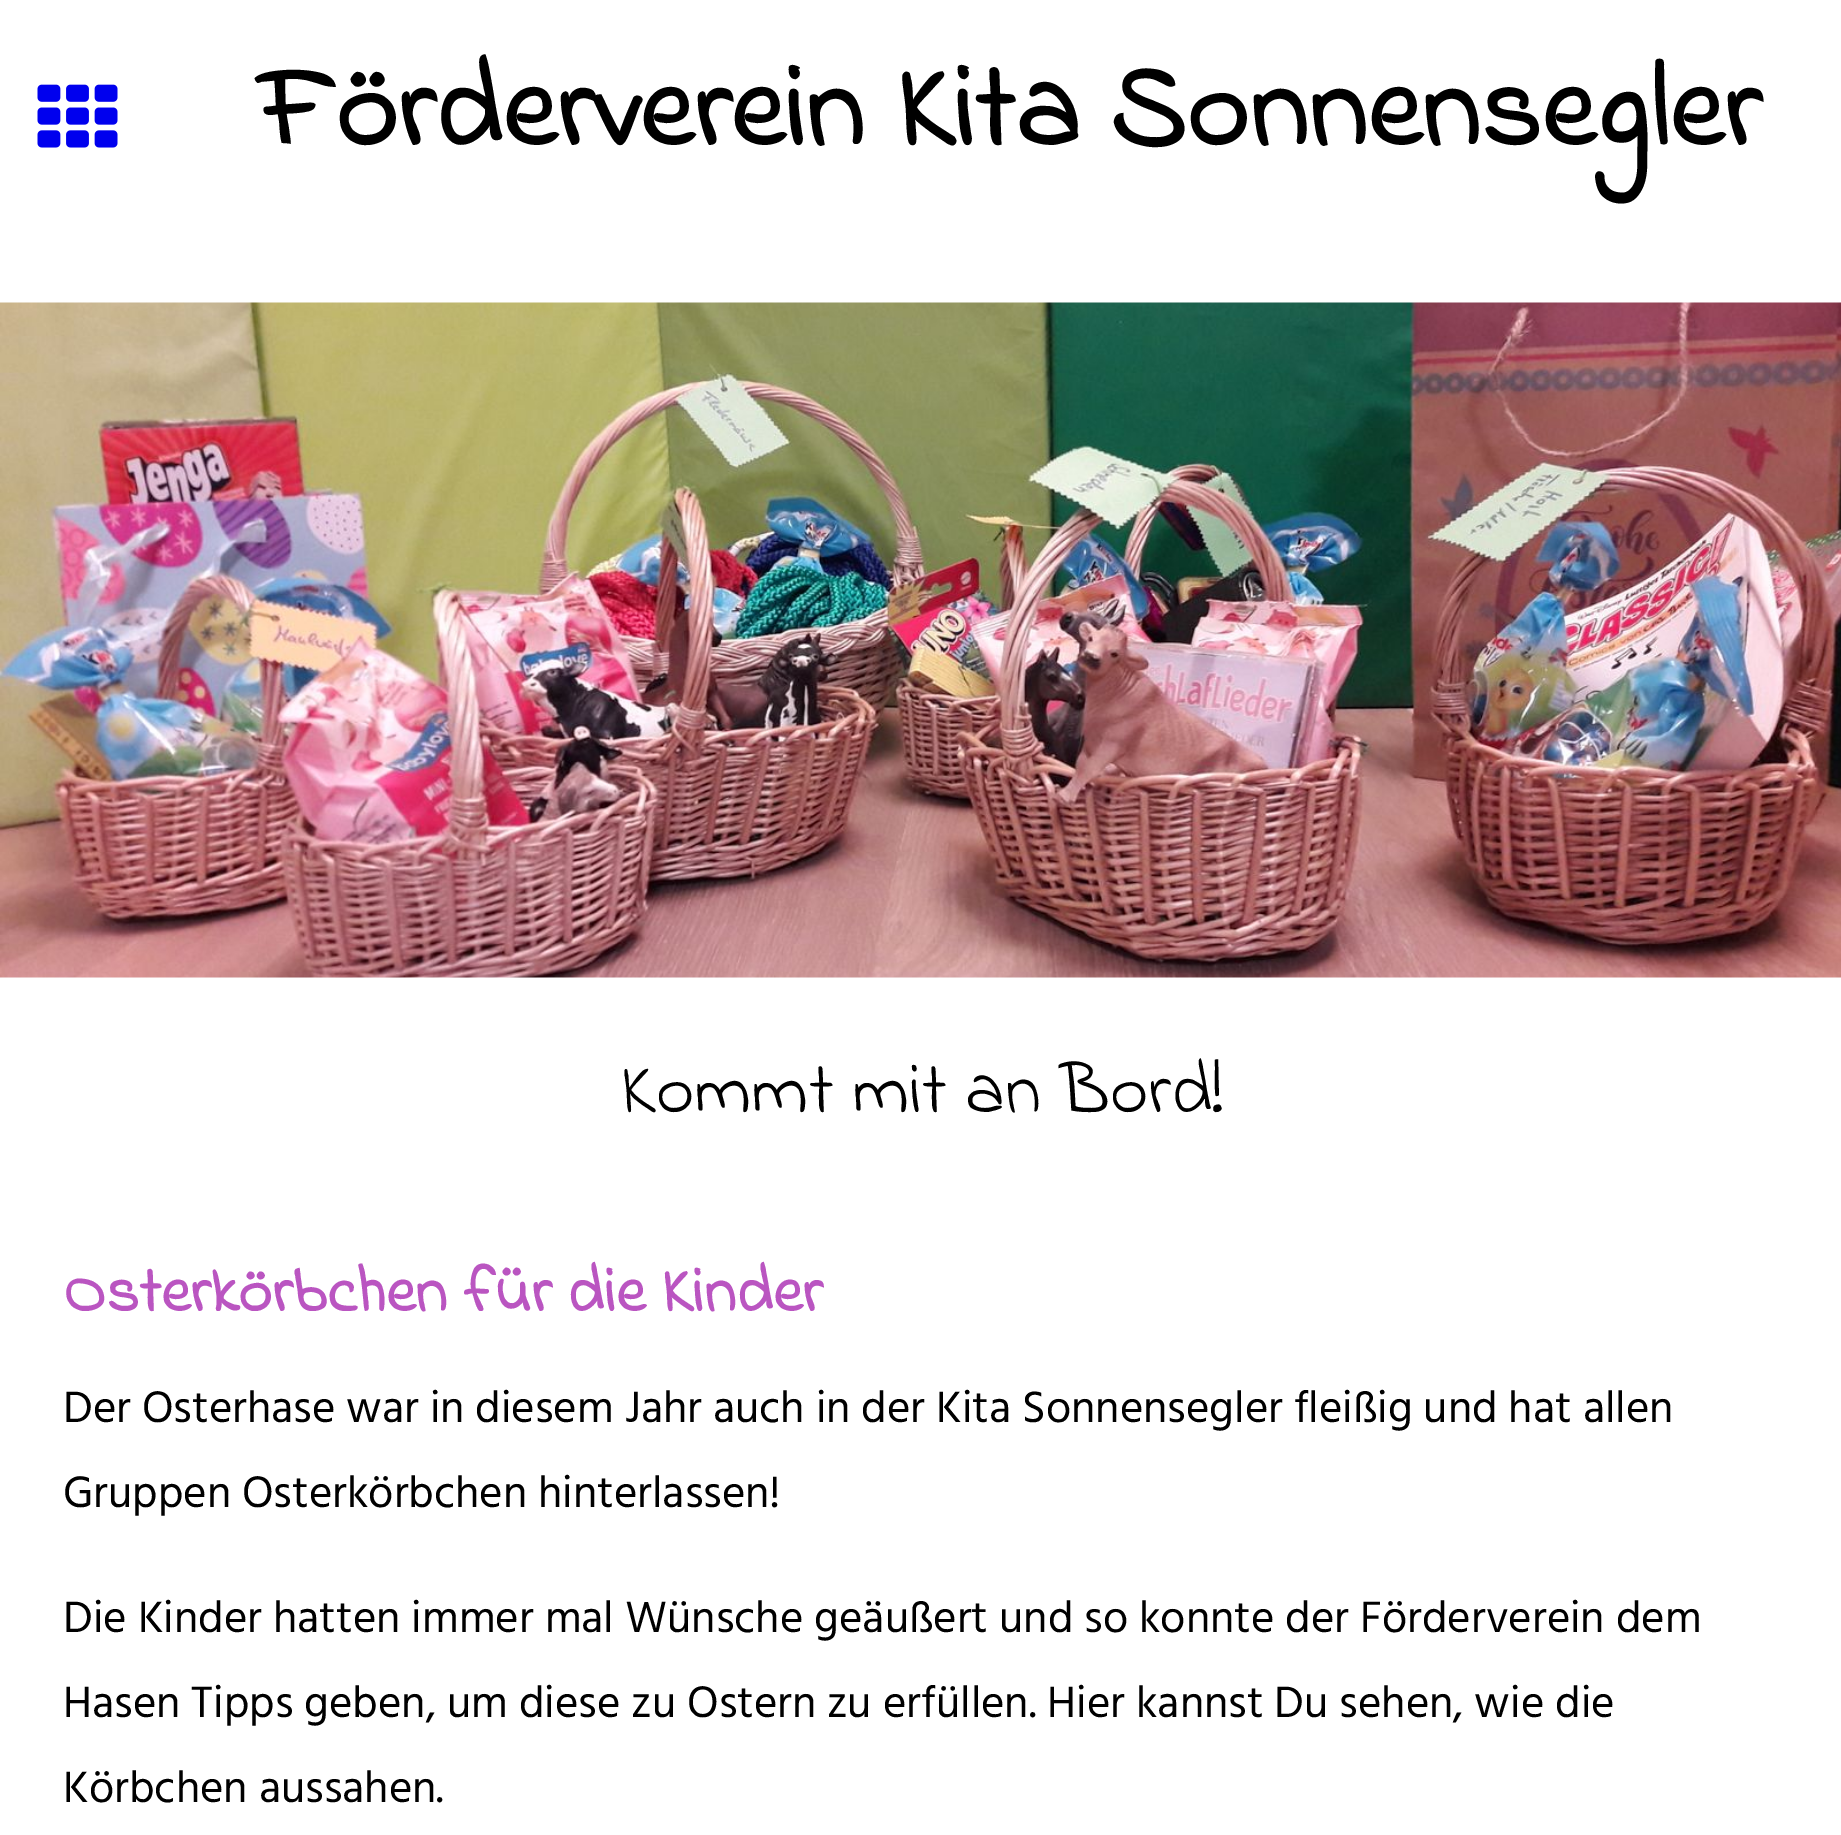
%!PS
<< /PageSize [1841 1835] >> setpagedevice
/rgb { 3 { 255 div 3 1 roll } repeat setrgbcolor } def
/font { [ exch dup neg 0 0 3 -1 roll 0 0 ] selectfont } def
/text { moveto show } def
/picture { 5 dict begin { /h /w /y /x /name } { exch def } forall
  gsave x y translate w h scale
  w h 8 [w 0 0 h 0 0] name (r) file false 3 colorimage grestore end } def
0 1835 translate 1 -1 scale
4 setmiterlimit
255 255 255 rgb
0 0 1841 1835 rectfill
(img_01.rgb) 37 84 81 64 picture
(img_02.rgb) 0 302 1841 676 picture
/IndieFlower-Bold 120 font
0 0 0 rgb
(Förderverein Kita Sonnensegler) 257 145 text
/IndieFlower-Regular 73.75 font
(Kommt mit an Bord!) 620 1112 text
/IndieFlower-Bold 65 font
186 85 193 rgb
(Osterkörbchen für die Kinder) 63 1311 text
/HindGuntur-Regular 45 font
0 0 0 rgb
(Der Osterhase war in diesem Jahr auch in der Kita Sonnensegler fleißig und hat allen) 63 1422 text
(Gruppen Osterkörbchen hinterlassen!) 63 1507 text
(Die Kinder hatten immer mal Wünsche geäußert und so konnte der Förderverein dem) 63 1632 text
(Hasen Tipps geben, um diese zu Ostern zu erfüllen. Hier kannst Du sehen, wie die) 63 1717 text
(Körbchen aussahen.) 63 1802 text
showpage
